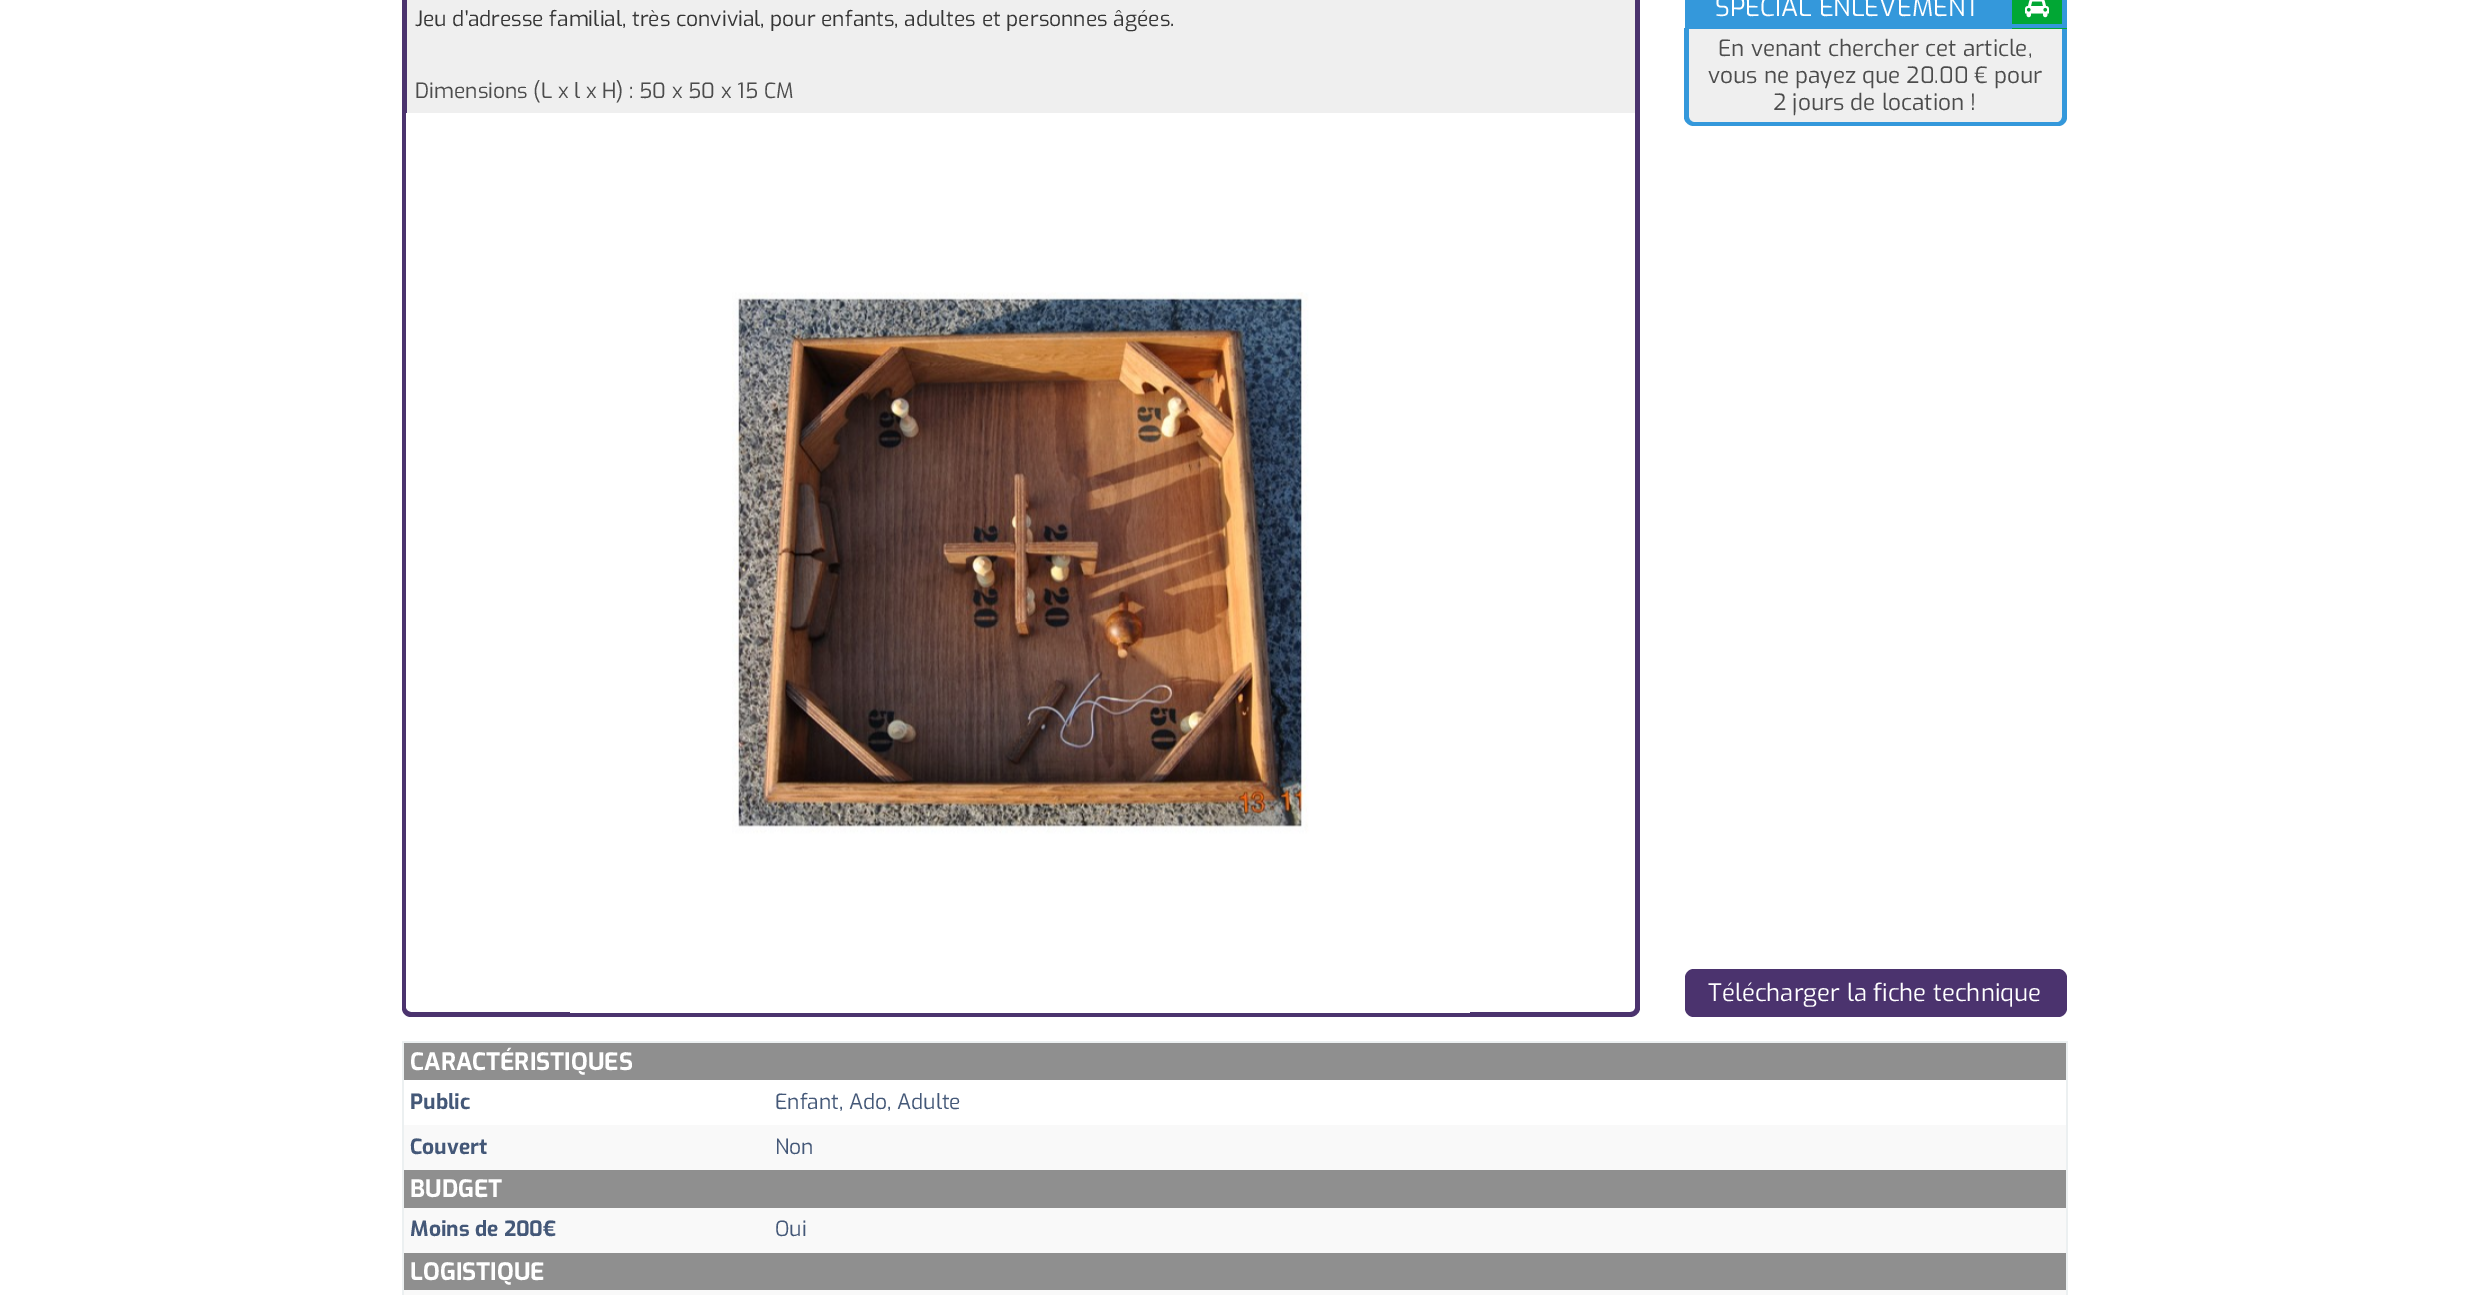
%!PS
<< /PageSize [2467 1295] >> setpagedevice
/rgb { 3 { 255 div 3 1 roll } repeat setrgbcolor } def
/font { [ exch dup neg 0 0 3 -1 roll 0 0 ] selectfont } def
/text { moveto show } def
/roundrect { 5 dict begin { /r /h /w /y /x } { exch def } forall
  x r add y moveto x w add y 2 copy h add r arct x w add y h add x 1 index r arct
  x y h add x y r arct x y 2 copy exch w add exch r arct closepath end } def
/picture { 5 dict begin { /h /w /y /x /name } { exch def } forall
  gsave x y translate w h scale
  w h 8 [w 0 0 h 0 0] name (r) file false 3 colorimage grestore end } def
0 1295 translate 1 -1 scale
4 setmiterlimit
255 255 255 rgb
0 0 2467 1295 rectfill
239 239 239 rgb
407 0 1228 113 rectfill
75 51 110 rgb
1635 0 5 113 rectfill
402 0 5 113 rectfill
402 112 moveto 1238 0 rlineto 0 896 rlineto 0 5 -5 9 -10 9 rcurveto -1219 0 rlineto -5 0 -9 -4 -9 -9 rcurveto closepath 406 112 moveto 1229 0 rlineto 0 896 rlineto 0 2 -2 4 -5 4 rcurveto -1219 0 rlineto -2 0 -5 -2 -5 -4 rcurveto closepath eofill
(img_01.rgb) 570 292 900 721 picture
239 239 239 rgb
1685 29 moveto 382 0 rlineto 0 88 rlineto 0 5 -4 9 -9 9 rcurveto -364 0 rlineto -5 0 -9 -4 -9 -9 rcurveto closepath fill
52 152 219 rgb
1684 28 moveto 383 0 rlineto 0 89 rlineto 0 5 -4 9 -9 9 rcurveto -364 0 rlineto -5 0 -10 -4 -10 -9 rcurveto closepath 1689 28 moveto 373 0 rlineto 0 89 rlineto 0 2 -2 5 -4 5 rcurveto -364 0 rlineto -3 0 -5 -3 -5 -5 rcurveto closepath eofill
1685 0 327 29 rectfill
1 167 52 rgb
2012 0 55 29 rectfill
52 152 219 rgb
2012 -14 moveto 46 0 rlineto 5 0 9 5 9 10 rcurveto 0 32 rlineto -55 0 rlineto closepath 2012 -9 moveto 46 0 rlineto 2 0 4 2 4 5 rcurveto 0 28 rlineto -50 0 rlineto closepath eofill
(img_02.rgb) 2025 0 24 18 picture
75 51 110 rgb
1685 969 382 48 9 roundrect fill
236 240 241 rgb
402 1041 1665 2 rectfill
2066 1041 2 254 rectfill
249 249 249 rgb
402 1290 1664 5 rectfill
236 240 241 rgb
402 1041 2 254 rectfill
143 143 143 rgb
404 1043 1662 37 rectfill
249 249 249 rgb
404 1125 1662 45 rectfill
143 143 143 rgb
404 1170 1662 38 rectfill
249 249 249 rgb
404 1208 1662 45 rectfill
143 143 143 rgb
404 1253 1662 37 rectfill
/Exo-Regular 21 font
54 54 54 rgb
(Jeu d'adresse familial, très convivial, pour enfants, adultes et personnes âgées.) 415 26 text
76 76 76 rgb
(Dimensions \(L x l x H\) : 50 x 50 x 15 CM) 415 98 text
/Exo-Regular 25.5 font
255 255 255 rgb
(SPECIAL ENLEVEMENT) 1715 16 text
/Exo-Regular 22.5 font
76 76 76 rgb
(En venant chercher cet article,) 1718 56 text
(vous ne payez que 20.00 € pour) 1708 83 text
(2 jours de location !) 1773 110 text
/Exo-Regular 24 font
255 255 255 rgb
(Télécharger la fiche technique) 1708 1001 text
/Exo-Bold 24 font
(CARACTÉRISTIQUES) 410 1070 text
/Exo-Bold 21 font
68 88 120 rgb
(Public) 410 1109 text
/Exo-Regular 21 font
(Enfant, Ado, Adulte) 775 1109 text
/Exo-Bold 21 font
(Couvert) 410 1154 text
/Exo-Regular 21 font
(Non) 775 1154 text
/Exo-Bold 24 font
255 255 255 rgb
(BUDGET) 410 1197 text
/Exo-Bold 21 font
68 88 120 rgb
(Moins de 200€) 410 1236 text
/Exo-Regular 21 font
(Oui) 775 1236 text
/Exo-Bold 24 font
255 255 255 rgb
(LOGISTIQUE) 410 1280 text
showpage
